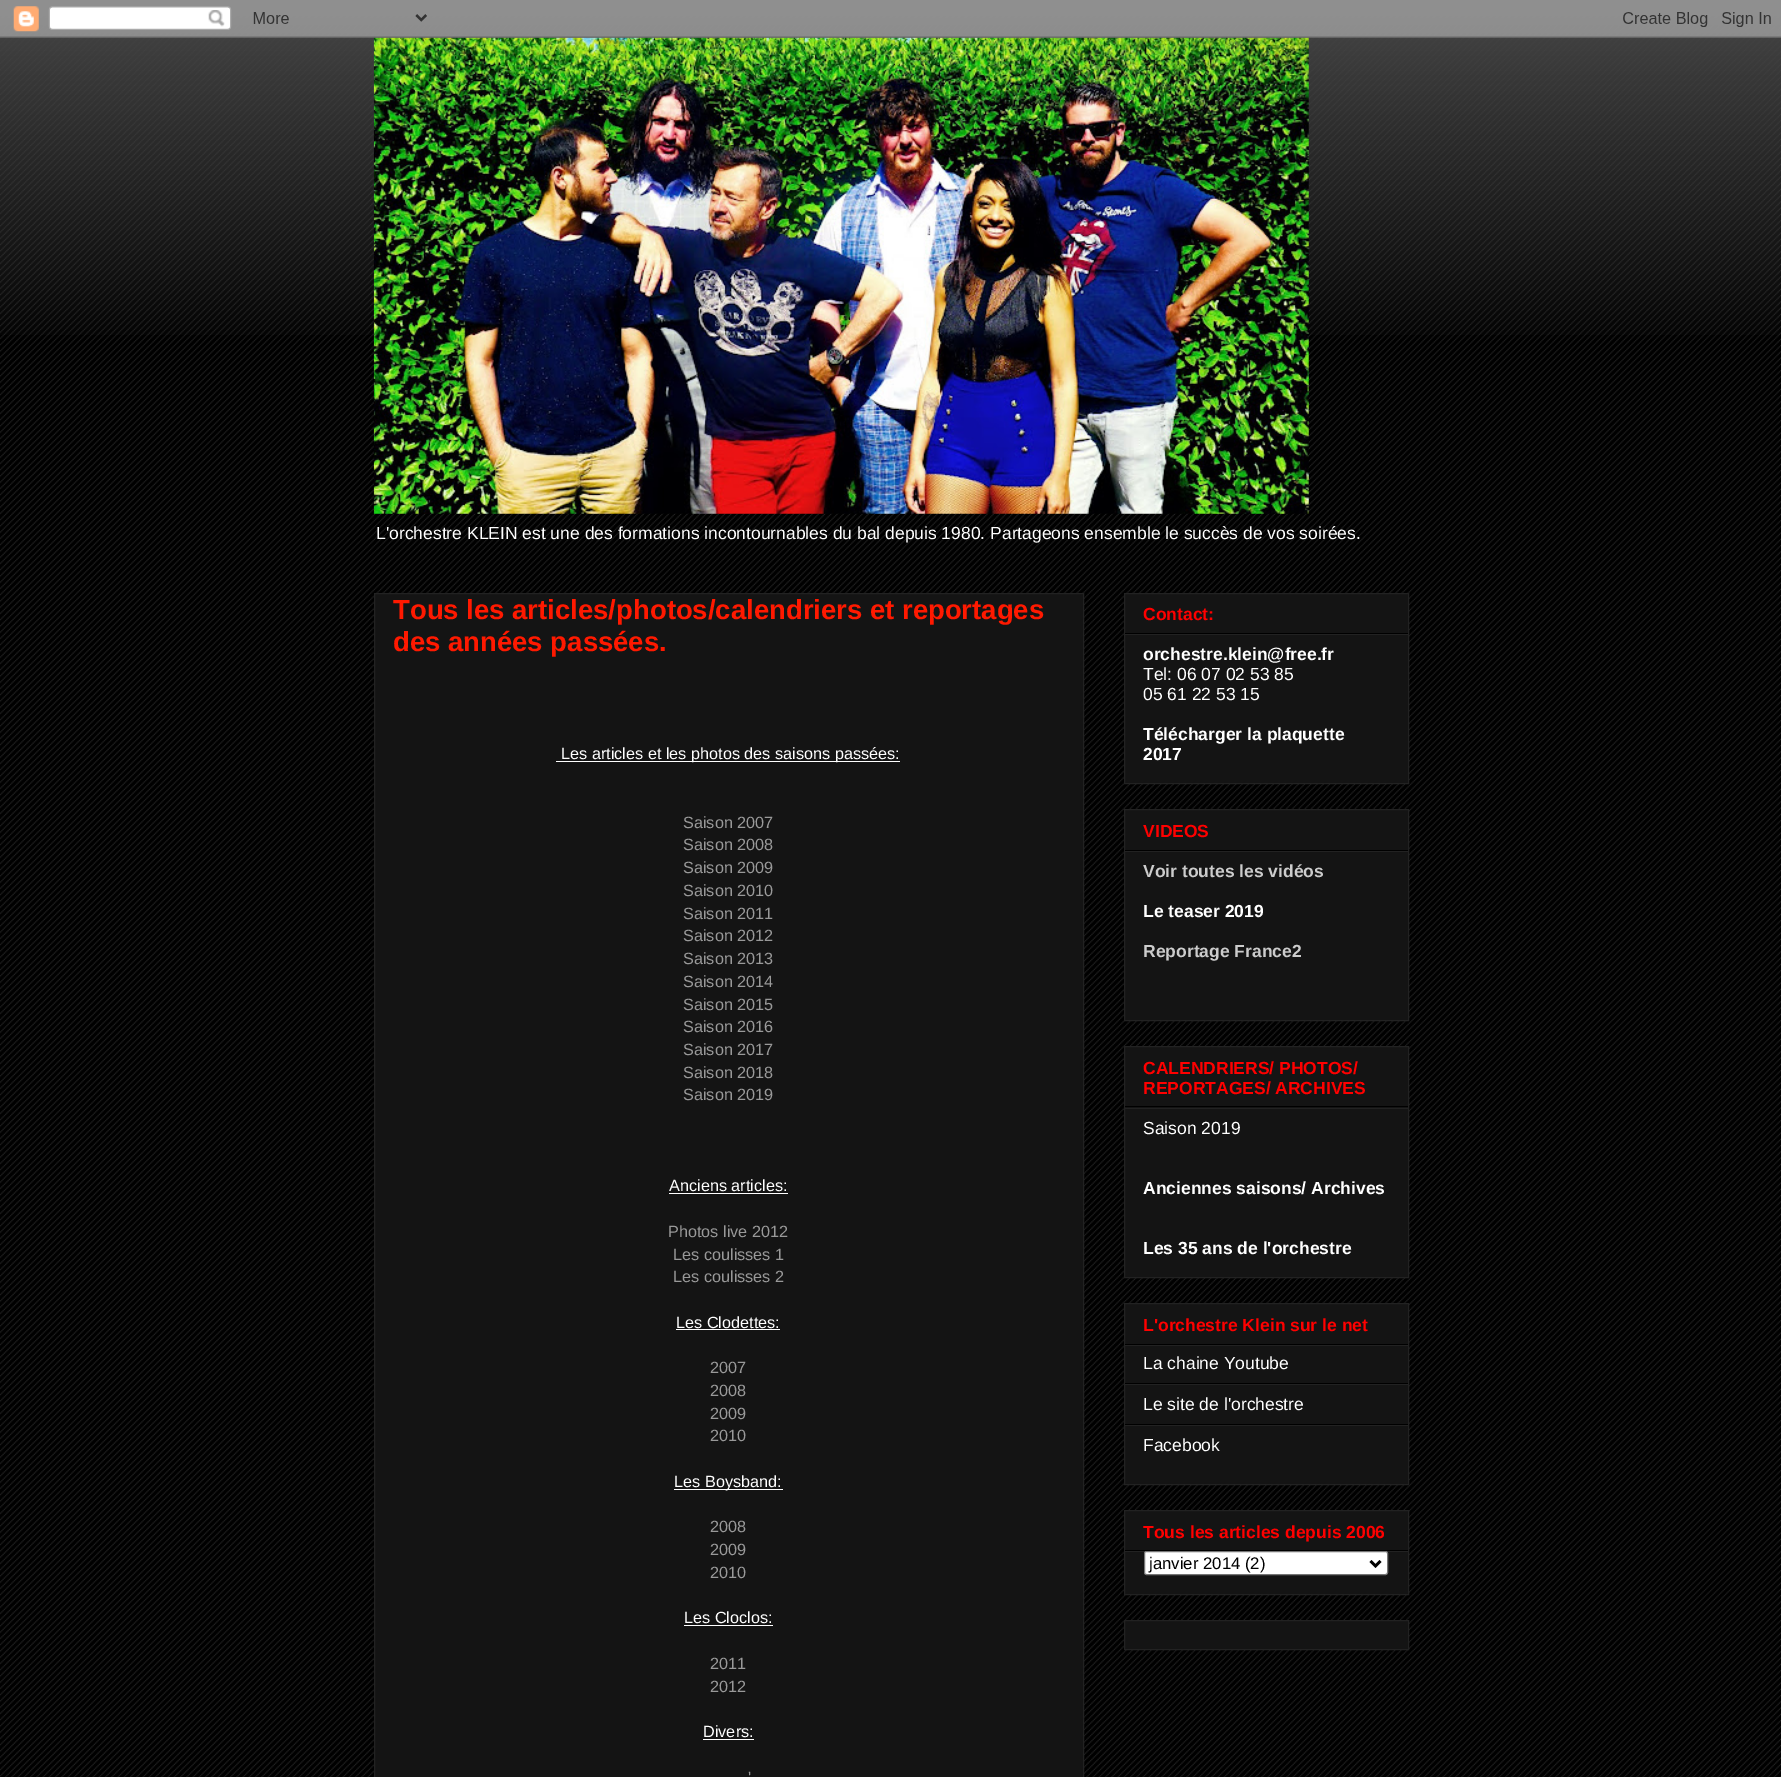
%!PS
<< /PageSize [1781 1777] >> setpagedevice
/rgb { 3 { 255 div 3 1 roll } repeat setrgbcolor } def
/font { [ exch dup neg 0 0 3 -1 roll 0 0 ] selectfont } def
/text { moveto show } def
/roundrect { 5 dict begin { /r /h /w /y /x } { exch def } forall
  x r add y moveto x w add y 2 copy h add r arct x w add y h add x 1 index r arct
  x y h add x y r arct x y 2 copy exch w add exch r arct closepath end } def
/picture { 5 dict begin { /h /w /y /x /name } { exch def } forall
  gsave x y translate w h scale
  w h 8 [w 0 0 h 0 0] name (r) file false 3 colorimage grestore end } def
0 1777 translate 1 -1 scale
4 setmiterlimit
0 0 0 rgb
0 0 1781 1777 rectfill
(img_01.rgb) 0 16 1781 1761 picture
(img_02.rgb) 0 0 1781 335 picture
(img_04.rgb) 373 37 936 477 picture
(img_03.rgb) 0 0 1781 38 picture
20 20 20 rgb
374.5 593.5 moveto 709 0 rlineto 0 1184 rlineto -709 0 rlineto closepath gsave fill grestore
34 34 34 rgb
stroke
255 255 255 rgb
556 761 344 1 rectfill
669 1193 119 1 rectfill
676 1329 104 1 rectfill
674 1489 109 1 rectfill
684 1625 89 1 rectfill
703 1739 51 1 rectfill
20 20 20 rgb
1124.5 593.5 moveto 284 0 rlineto 0 190 rlineto -284 0 rlineto closepath gsave fill grestore
34 34 34 rgb
stroke
0 0 0 rgb
1125 633 283 1 rectfill
34 34 34 rgb
1125 634 283 1 rectfill
20 20 20 rgb
1124.5 809.5 moveto 284 0 rlineto 0 211 rlineto -284 0 rlineto closepath gsave fill grestore
34 34 34 rgb
stroke
0 0 0 rgb
1125 850 283 1 rectfill
34 34 34 rgb
1125 851 283 1 rectfill
20 20 20 rgb
1124.5 1046.5 moveto 284 0 rlineto 0 231 rlineto -284 0 rlineto closepath gsave fill grestore
34 34 34 rgb
stroke
0 0 0 rgb
1125 1106 283 1 rectfill
34 34 34 rgb
1125 1108 283 1 rectfill
20 20 20 rgb
1124.5 1303.5 moveto 284 0 rlineto 0 181 rlineto -284 0 rlineto closepath gsave fill grestore
34 34 34 rgb
stroke
0 0 0 rgb
1125 1344 283 1 rectfill
34 34 34 rgb
1125 1345 283 1 rectfill
0 0 0 rgb
1125 1383 283 1 rectfill
34 34 34 rgb
1125 1384 283 1 rectfill
0 0 0 rgb
1125 1424 283 1 rectfill
34 34 34 rgb
1125 1425 283 1 rectfill
20 20 20 rgb
1124.5 1510.5 moveto 284 0 rlineto 0 84 rlineto -284 0 rlineto closepath gsave fill grestore
34 34 34 rgb
stroke
0 0 0 rgb
1125 1550 283 1 rectfill
34 34 34 rgb
1125 1551 283 1 rectfill
255 255 255 rgb
1144.5 1551.5 243 23 2 roundrect gsave fill grestore
118 118 118 rgb
stroke
0 0 0 rgb
2.5 setlinewidth
1370.5 1561 moveto 5 5 rlineto 5 -5 rlineto stroke
20 20 20 rgb
1124.5 1620.5 moveto 284 0 rlineto 0 29 rlineto -284 0 rlineto closepath gsave fill grestore
34 34 34 rgb
1 setlinewidth
stroke
/LiberationSans-Regular 17.5 font
255 255 255 rgb
(L'orchestre KLEIN est une des formations incontournables du bal depuis 1980. Partageons ensemble le succès de vos soirées.) 376 539 text
/LiberationSans-Bold 27.5 font
255 25 0 rgb
(Tous les articles/photos/calendriers et reportages) 393 619 text
(des années passées.) 393 651 text
/LiberationSans-Regular 16.25 font
255 255 255 rgb
(Les articles et les photos des saisons passées:) 561 759 text
153 153 153 rgb
(Saison 2007) 683 828 text
(Saison 2008) 683 850 text
(Saison 2009) 683 873 text
(Saison 2010) 683 896 text
(Saison 2011) 683 919 text
(Saison 2012) 683 941 text
(Saison 2013) 683 964 text
(Saison 2014) 683 987 text
(Saison 2015) 683 1010 text
(Saison 2016) 683 1032 text
(Saison 2017) 683 1055 text
(Saison 2018) 683 1078 text
(Saison 2019) 683 1100 text
255 255 255 rgb
(Anciens articles:) 669 1191 text
153 153 153 rgb
(Photos live 2012) 668 1237 text
(Les coulisses 1) 673 1260 text
(Les coulisses 2) 673 1282 text
255 255 255 rgb
(Les Clodettes:) 676 1328 text
153 153 153 rgb
(2007) 710 1373 text
(2008) 710 1396 text
(2009) 710 1419 text
(2010) 710 1441 text
255 255 255 rgb
(Les Boysband:) 674 1487 text
153 153 153 rgb
(2008) 710 1532 text
(2009) 710 1555 text
(2010) 710 1578 text
255 255 255 rgb
(Les Cloclos:) 684 1623 text
153 153 153 rgb
(2011) 710 1669 text
(2012) 710 1692 text
255 255 255 rgb
(Divers:) 703 1737 text
153 153 153 rgb
(') 748 1783 text
/LiberationSans-Bold 17.5 font
255 0 0 rgb
(Contact:) 1143 620 text
255 255 255 rgb
(orchestre.klein@free.fr) 1143 660 text
/LiberationSans-Regular 17.5 font
(Tel: 06 07 02 53 85) 1143 680 text
(05 61 22 53 15) 1143 700 text
/LiberationSans-Bold 17.5 font
(Télécharger la plaquette) 1143 740 text
(2017) 1143 760 text
255 0 0 rgb
(VIDEOS) 1143 837 text
204 204 204 rgb
(Voir toutes les vidéos) 1143 877 text
255 255 255 rgb
(Le teaser 2019) 1143 917 text
204 204 204 rgb
(Reportage France2) 1143 957 text
255 0 0 rgb
(CALENDRIERS/ PHOTOS/) 1143 1074 text
(REPORTAGES/ ARCHIVES) 1143 1094 text
/LiberationSans-Regular 17.5 font
255 255 255 rgb
(Saison 2019) 1143 1134 text
/LiberationSans-Bold 17.5 font
(Anciennes saisons/ Archives) 1143 1194 text
(Les 35 ans de l'orchestre) 1143 1254 text
255 0 0 rgb
(L'orchestre Klein sur le net) 1143 1331 text
/LiberationSans-Regular 17.5 font
255 255 255 rgb
(La chaine Youtube) 1143 1369 text
(Le site de l'orchestre) 1143 1410 text
(Facebook) 1143 1451 text
/LiberationSans-Bold 17.5 font
255 0 0 rgb
(Tous les articles depuis 2006) 1143 1538 text
/LiberationSans-Regular 16.75 font
0 0 0 rgb
(janvier 2014 \(2\)) 1149 1569 text
showpage
